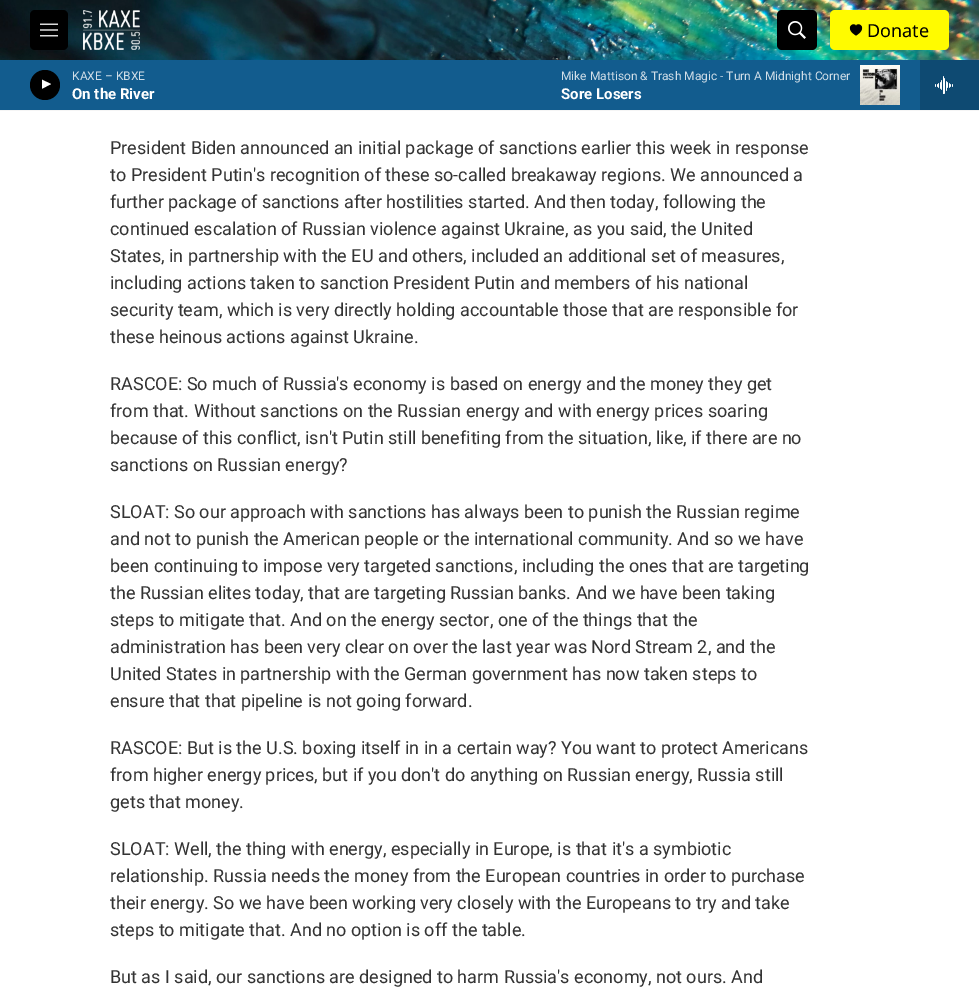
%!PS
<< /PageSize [979 993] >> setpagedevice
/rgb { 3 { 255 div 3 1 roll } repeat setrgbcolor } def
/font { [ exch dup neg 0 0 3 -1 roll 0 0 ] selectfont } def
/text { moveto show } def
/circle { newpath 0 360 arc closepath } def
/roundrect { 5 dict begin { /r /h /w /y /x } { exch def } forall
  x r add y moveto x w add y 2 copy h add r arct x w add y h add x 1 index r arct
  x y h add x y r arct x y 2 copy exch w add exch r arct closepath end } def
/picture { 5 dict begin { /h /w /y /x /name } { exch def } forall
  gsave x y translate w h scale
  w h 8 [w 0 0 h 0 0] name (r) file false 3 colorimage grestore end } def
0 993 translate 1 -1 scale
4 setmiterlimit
255 255 255 rgb
0 0 979 993 rectfill
245 245 245 rgb
0 110 979 1 rectfill
(img_01.rgb) 0 0 979 60 picture
0 0 0 rgb
30 10 38 40 5 roundrect fill
(img_02.rgb) 40 23 18 14 picture
(img_03.rgb) 83 10 57 40 picture
777 10 40 40 5 roundrect fill
(img_04.rgb) 788 21 18 18 picture
255 251 0 rgb
830 10 119 40 5 roundrect fill
0 0 0 rgb
856 26 moveto -2 -5 -12.5 2 0 9.5 rcurveto 12.5 -7.5 2 -14.5 0 -9.5 rcurveto closepath fill
18 92 142 rgb
0 60 920 50 rectfill
0 0 0 rgb
45 85 15 circle fill
gsave
42 78 12 15 rectclip
255 255 255 rgb
41.5 79.5 moveto 9.5 4.5 rlineto -9.5 5 rlineto closepath fill
grestore
(img_05.rgb) 860 65 40 40 picture
14 74 114 rgb
920 60 59 50 rectfill
(img_06.rgb) 935 76 18 18 picture
/NotoSans-Regular 18 font
0 0 0 rgb
(Donate) 867 37 text
/Roboto-Regular 12 font
208 222 232 rgb
(KAXE – KBXE) 72 80 text
/Roboto-Bold 15 font
255 255 255 rgb
(On the River) 72 99 text
/Roboto-Regular 12 font
208 222 232 rgb
(Mike Mattison & Trash Magic - Turn A Midnight Corner) 561 80 text
/Roboto-Bold 15 font
255 255 255 rgb
(Sore Losers) 561 99 text
/Roboto-Regular 18 font
51 51 51 rgb
(President Biden announced an initial package of sanctions earlier this week in response) 110 154 text
(to President Putin's recognition of these so-called breakaway regions. We announced a) 110 181 text
(further package of sanctions after hostilities started. And then today, following the) 110 208 text
(continued escalation of Russian violence against Ukraine, as you said, the United) 110 235 text
(States, in partnership with the EU and others, included an additional set of measures,) 110 262 text
(including actions taken to sanction President Putin and members of his national) 110 289 text
(security team, which is very directly holding accountable those that are responsible for) 110 316 text
(these heinous actions against Ukraine.) 110 343 text
(RASCOE: So much of Russia's economy is based on energy and the money they get) 110 390 text
(from that. Without sanctions on the Russian energy and with energy prices soaring) 110 417 text
(because of this conflict, isn't Putin still benefiting from the situation, like, if there are no) 110 444 text
(sanctions on Russian energy?) 110 471 text
(SLOAT: So our approach with sanctions has always been to punish the Russian regime) 110 518 text
(and not to punish the American people or the international community. And so we have) 110 545 text
(been continuing to impose very targeted sanctions, including the ones that are targeting) 110 572 text
(the Russian elites today, that are targeting Russian banks. And we have been taking) 110 599 text
(steps to mitigate that. And on the energy sector, one of the things that the) 110 626 text
(administration has been very clear on over the last year was Nord Stream 2, and the) 110 653 text
(United States in partnership with the German government has now taken steps to) 110 680 text
(ensure that that pipeline is not going forward.) 110 707 text
(RASCOE: But is the U.S. boxing itself in in a certain way? You want to protect Americans) 110 754 text
(from higher energy prices, but if you don't do anything on Russian energy, Russia still) 110 781 text
(gets that money.) 110 808 text
(SLOAT: Well, the thing with energy, especially in Europe, is that it's a symbiotic) 110 855 text
(relationship. Russia needs the money from the European countries in order to purchase) 110 882 text
(their energy. So we have been working very closely with the Europeans to try and take) 110 909 text
(steps to mitigate that. And no option is off the table.) 110 936 text
(But as I said, our sanctions are designed to harm Russia's economy, not ours. And) 110 983 text
showpage
